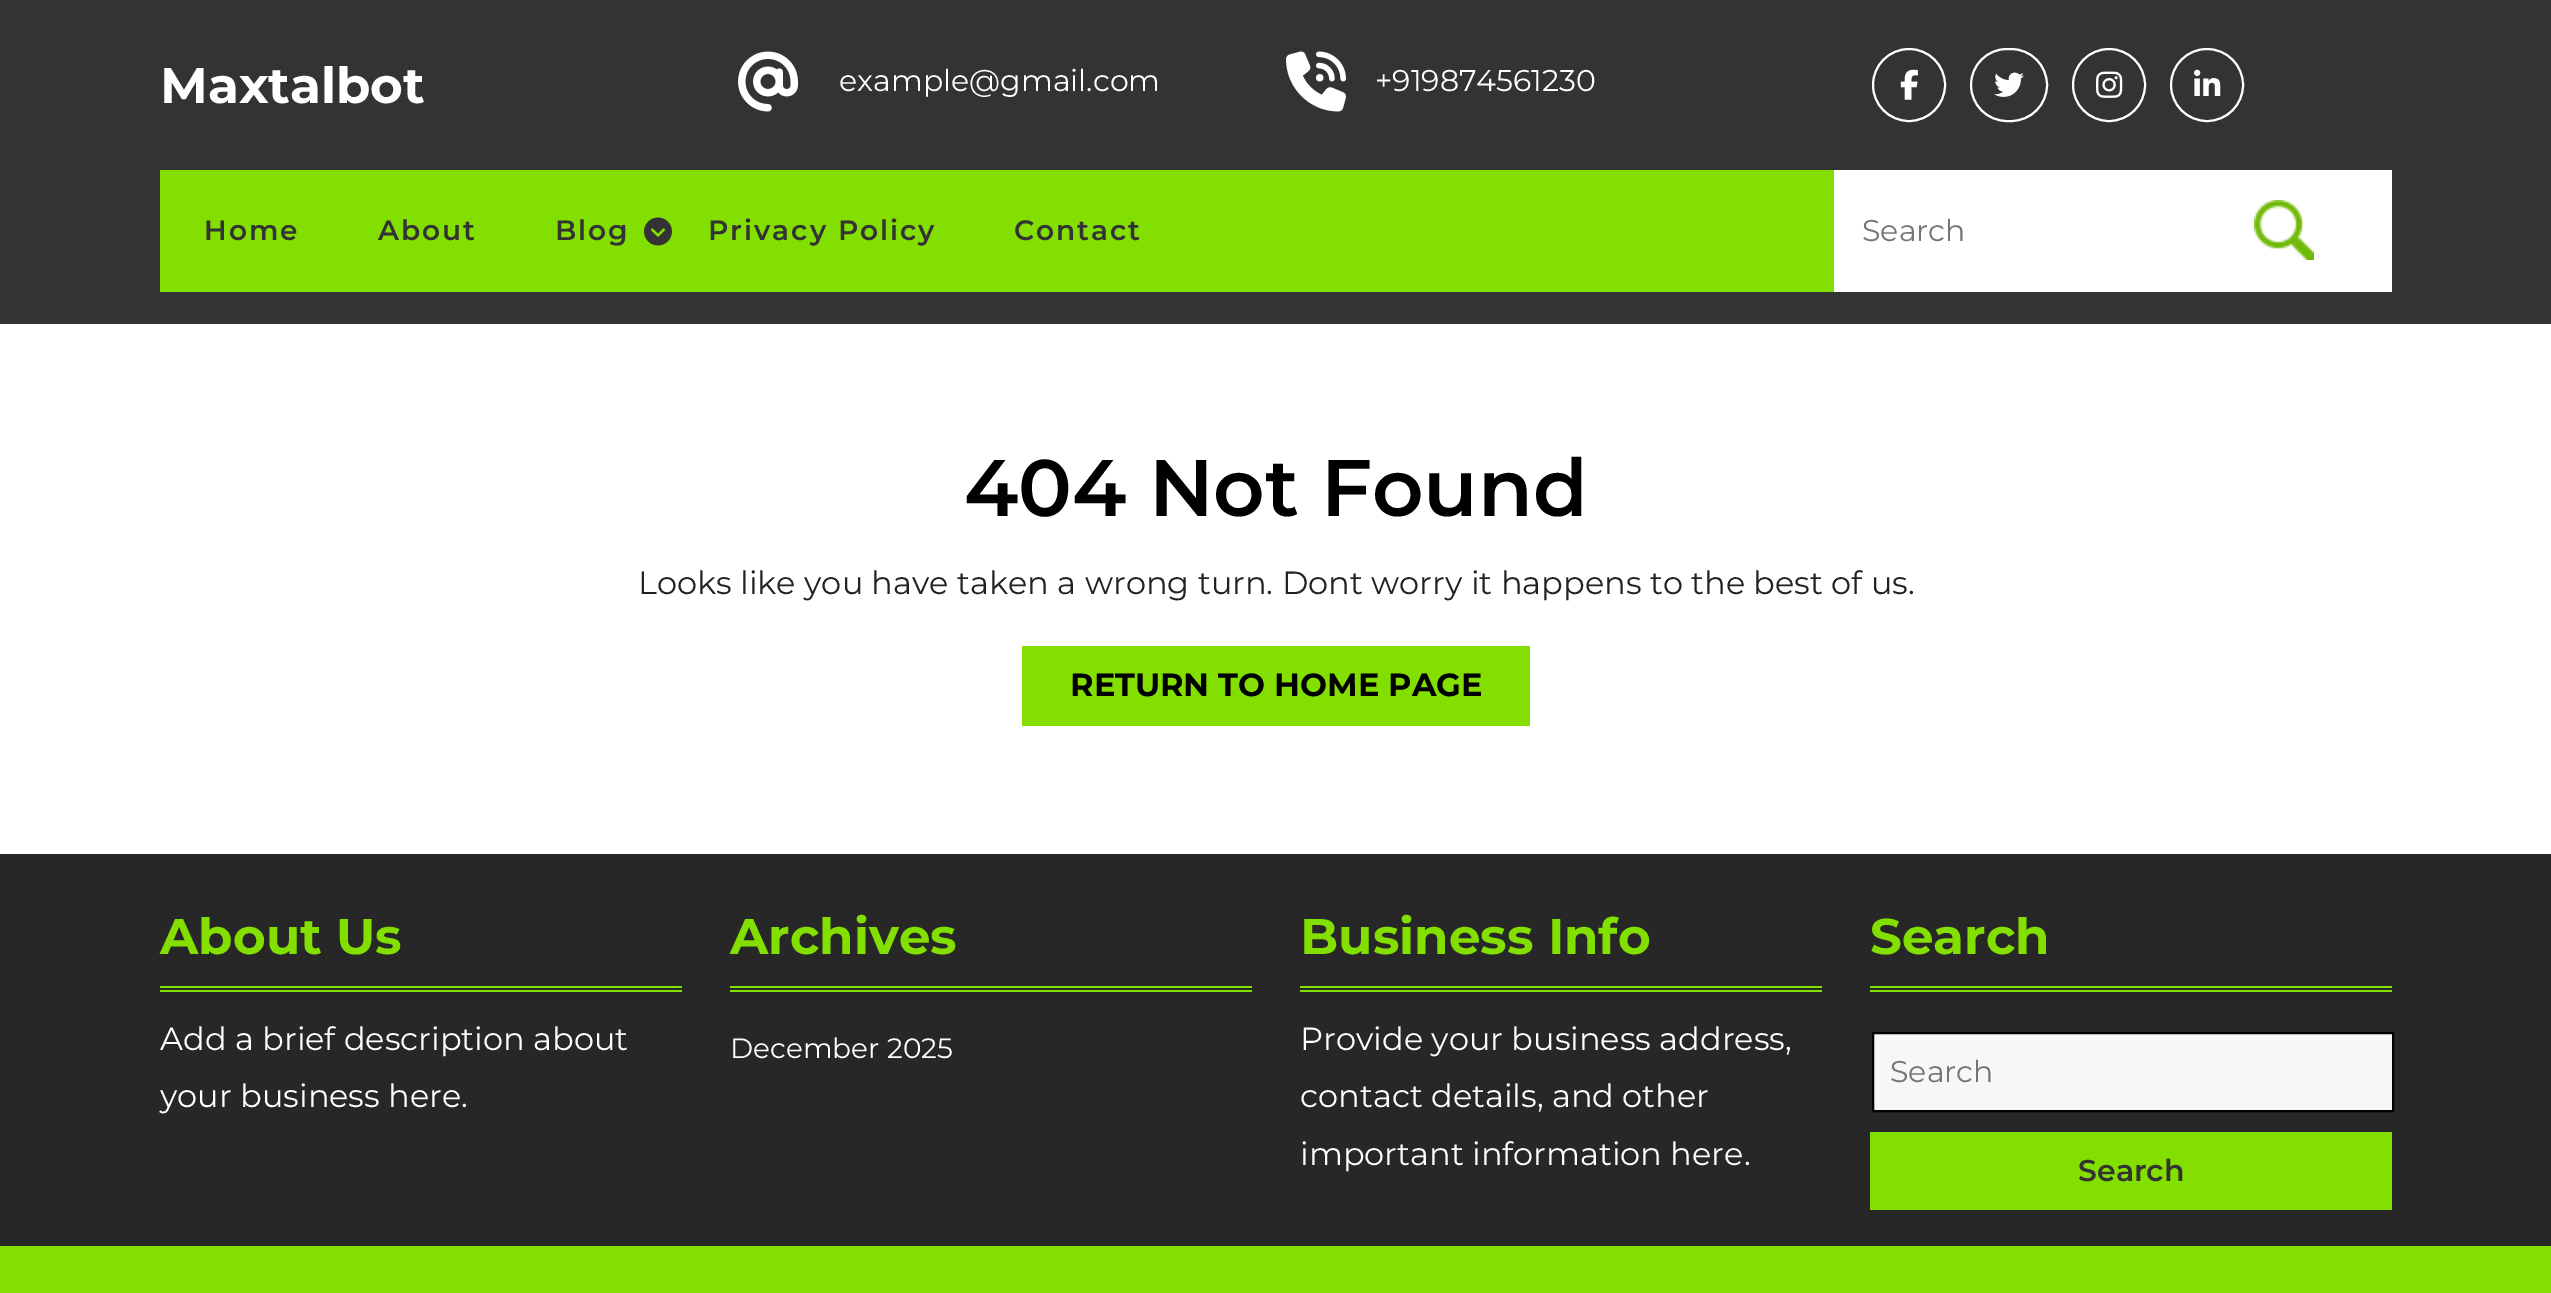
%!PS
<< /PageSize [2551 1293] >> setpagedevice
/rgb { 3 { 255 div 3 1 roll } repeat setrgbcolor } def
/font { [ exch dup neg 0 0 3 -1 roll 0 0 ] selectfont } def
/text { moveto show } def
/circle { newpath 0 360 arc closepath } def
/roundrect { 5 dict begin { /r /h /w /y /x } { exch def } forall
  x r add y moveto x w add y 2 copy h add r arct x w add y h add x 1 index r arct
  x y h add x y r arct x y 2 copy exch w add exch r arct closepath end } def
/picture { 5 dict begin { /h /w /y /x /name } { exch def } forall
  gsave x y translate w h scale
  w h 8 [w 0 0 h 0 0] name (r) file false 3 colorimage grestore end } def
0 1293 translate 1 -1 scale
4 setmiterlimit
255 255 255 rgb
0 0 2551 1293 rectfill
51 51 51 rgb
0 0 2551 324 rectfill
(img_01.rgb) 738 51 60 61 picture
(img_02.rgb) 1286 51 60 61 picture
255 255 255 rgb
2 setlinewidth
1909 85 36 circle stroke
(img_03.rgb) 1900 69 18 31 picture
1971 49 76 72 36 roundrect stroke
(img_04.rgb) 1994 72 30 25 picture
2109 85 36 circle stroke
(img_05.rgb) 2096 71 27 27 picture
2207 85 36 circle stroke
(img_06.rgb) 2194 69 27 27 picture
131 223 0 rgb
160 170 1674 122 rectfill
(img_07.rgb) 644 217 28 29 picture
255 255 255 rgb
1834 170 558 122 rectfill
(img_08.rgb) 2254 200 60 60 picture
131 223 0 rgb
1022 646 508 80 rectfill
39 39 39 rgb
0 854 2551 392 rectfill
131 223 0 rgb
160 986 522 2 rectfill
160 990 522 2 rectfill
730 986 522 2 rectfill
730 990 522 2 rectfill
1300 986 522 2 rectfill
1300 990 522 2 rectfill
1870 986 522 2 rectfill
1870 990 522 2 rectfill
247 247 247 rgb
1873 1033 moveto 520 0 rlineto 0 78 rlineto -520 0 rlineto closepath gsave fill grestore
0 0 0 rgb
stroke
131 223 0 rgb
1870 1132 522 78 rectfill
131 223 2 rgb
0 1246 2551 47 rectfill
/Montserrat-Bold 50 font
255 255 255 rgb
(Maxtalbot) 160 103 text
/Montserrat-Regular 30 font
(example@gmail.com) 839 91 text
(+919874561230) 1375 91 text
/Montserrat-SemiBold 28 font
51 51 51 rgb
204 240 moveto 2 0 (Home) ashow
378 240 moveto 2 0 (About) ashow
555 240 moveto 2 0 (Blog) ashow
708 240 moveto 2 0 (Privacy Policy) ashow
1014 240 moveto 2 0 (Contact) ashow
/Montserrat-Regular 30 font
117 117 117 rgb
(Search) 1862 241 text
/Montserrat-SemiBold 80 font
0 0 0 rgb
(404 Not Found) 964 516 text
/Montserrat-Regular 32 font
34 34 34 rgb
(Looks like you have taken a wrong turn. Dont worry it happens to the best of us.) 638 594 text
/Montserrat-Bold 32 font
0 0 0 rgb
(RETURN TO HOME PAGE) 1070 696 text
/Montserrat-Bold 50 font
131 223 0 rgb
(About Us) 160 954 text
/Montserrat-Regular 32 font
255 255 255 rgb
(Add a brief description about) 160 1050 text
(your business here.) 160 1107 text
/Montserrat-Bold 50 font
131 223 0 rgb
(Archives) 730 954 text
/Montserrat-Regular 28 font
255 255 255 rgb
(December 2025) 730 1058 text
/Montserrat-Bold 50 font
131 223 0 rgb
(Business Info) 1300 954 text
/Montserrat-Regular 32 font
255 255 255 rgb
(Provide your business address,) 1300 1050 text
(contact details, and other) 1300 1107 text
(important information here.) 1300 1165 text
/Montserrat-Bold 50 font
131 223 0 rgb
(Search) 1870 954 text
/Montserrat-Regular 30 font
117 117 117 rgb
(Search) 1890 1082 text
/Montserrat-SemiBold 30 font
51 51 51 rgb
(Search) 2078 1181 text
showpage
